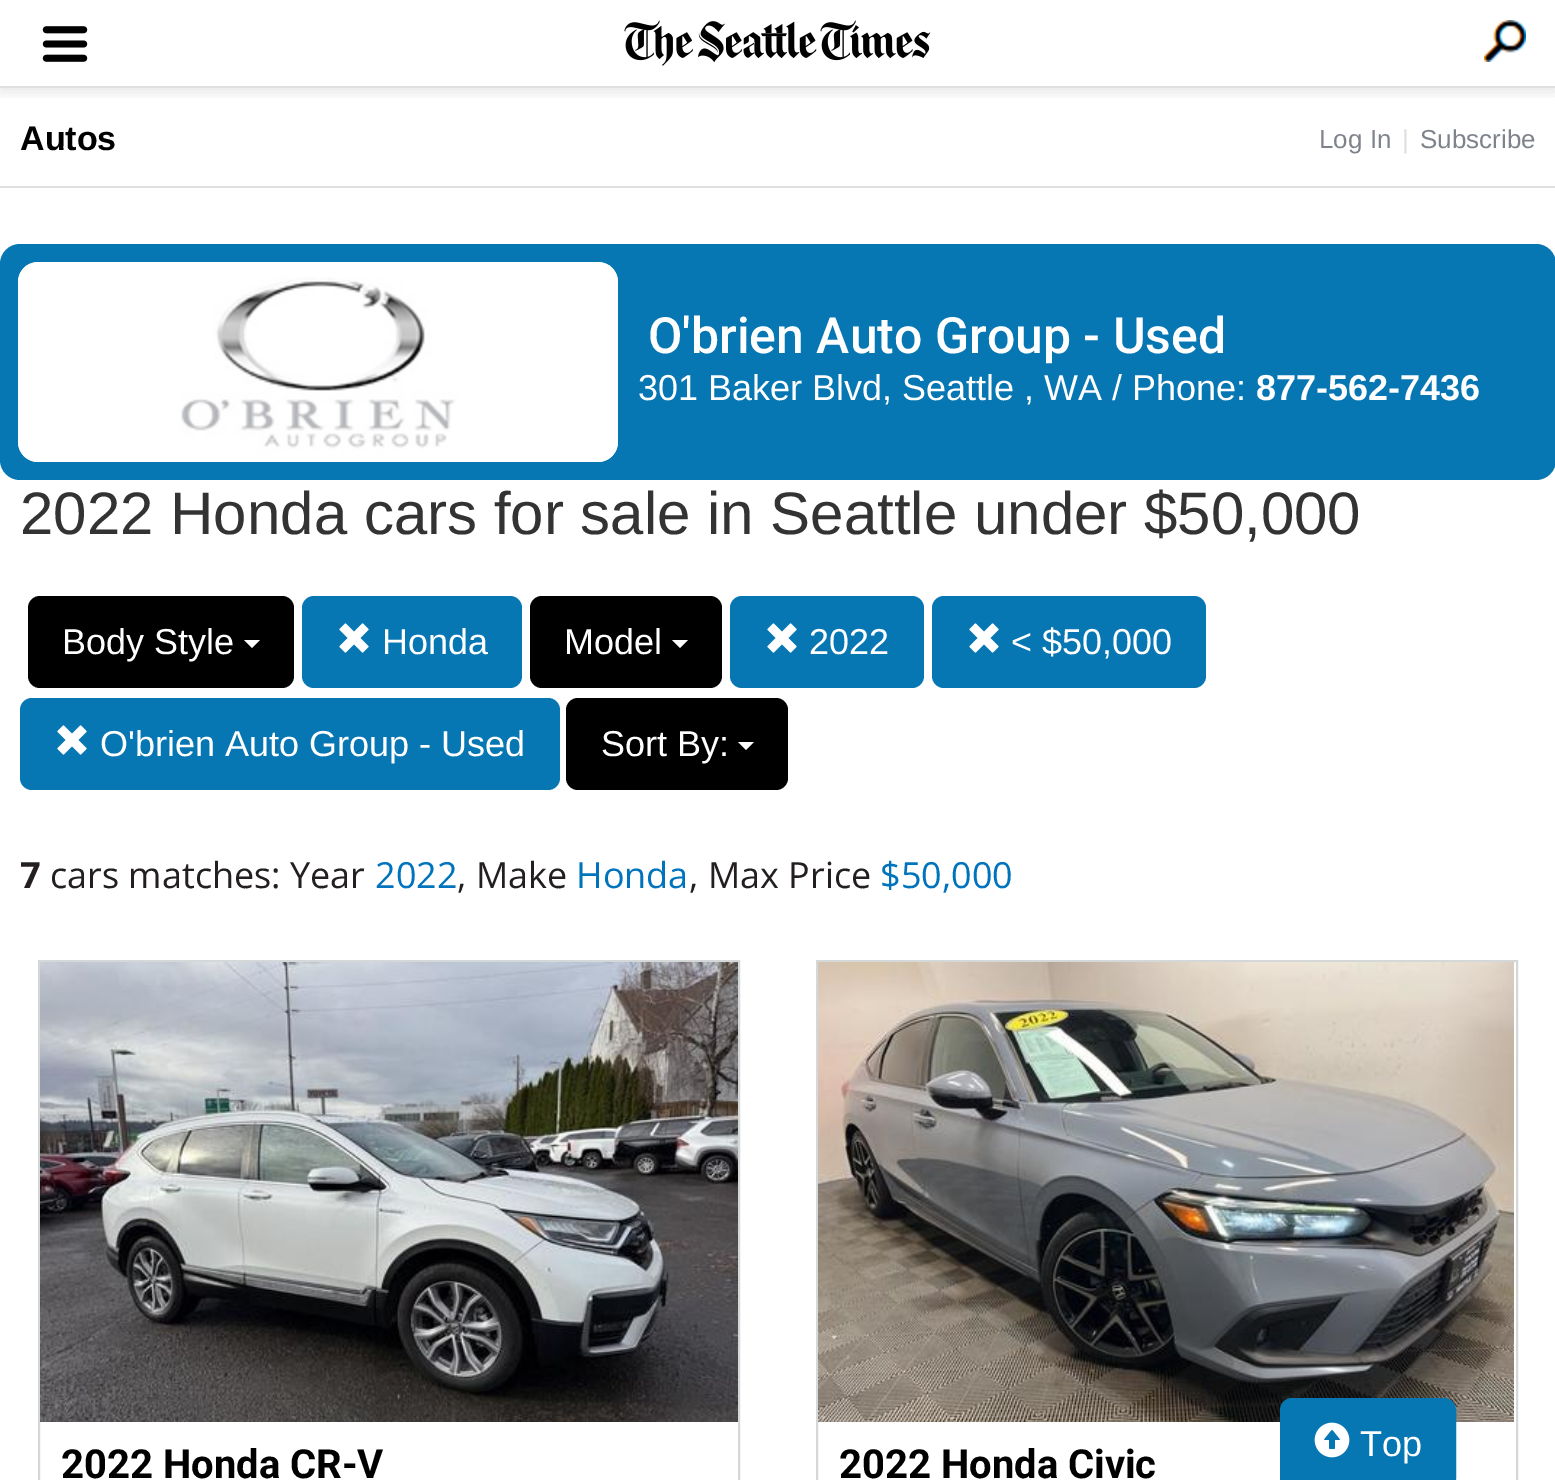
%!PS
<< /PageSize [1555 1480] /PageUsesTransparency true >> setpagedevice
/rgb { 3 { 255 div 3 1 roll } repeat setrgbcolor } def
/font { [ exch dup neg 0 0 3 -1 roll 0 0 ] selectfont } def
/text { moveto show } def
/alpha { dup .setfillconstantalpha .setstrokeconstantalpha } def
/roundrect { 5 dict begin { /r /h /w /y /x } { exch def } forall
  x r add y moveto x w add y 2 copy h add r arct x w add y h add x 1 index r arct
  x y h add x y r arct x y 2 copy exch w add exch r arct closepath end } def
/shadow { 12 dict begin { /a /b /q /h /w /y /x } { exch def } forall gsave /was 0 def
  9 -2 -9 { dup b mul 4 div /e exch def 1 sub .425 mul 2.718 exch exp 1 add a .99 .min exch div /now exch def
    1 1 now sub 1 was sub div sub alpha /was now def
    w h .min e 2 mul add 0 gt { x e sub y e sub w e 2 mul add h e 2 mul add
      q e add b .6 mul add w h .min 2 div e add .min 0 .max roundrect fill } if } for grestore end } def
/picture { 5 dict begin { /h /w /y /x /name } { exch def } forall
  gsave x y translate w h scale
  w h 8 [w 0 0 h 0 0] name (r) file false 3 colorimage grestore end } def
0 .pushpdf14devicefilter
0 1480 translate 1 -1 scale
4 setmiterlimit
255 255 255 rgb
0 0 1555 1480 rectfill
gsave
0 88 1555 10 rectclip
0 0 0 rgb
0 4 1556 88 0 7 0.1 shadow
grestore
224 224 224 rgb
0 86 1555 2 rectfill
(img_01.rgb) 42 26 46 36 picture
(img_02.rgb) 624 20 307 46 picture
(img_03.rgb) 1484 20 42 42 picture
0 186 1555 2 rectfill
7 119 179 rgb
0 244 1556 236 20 roundrect fill
255 255 255 rgb
18 262 600 200 20 roundrect fill
(img_04.rgb) 18 262 600 200 picture
0 0 0 rgb
28 596 266 92 12 roundrect fill
255 255 255 rgb
244 640 moveto 16 0 rlineto -8 8 rlineto closepath fill
7 119 179 rgb
302 596 220 92 12 roundrect fill
(img_05.rgb) 339 623 30 30 picture
0 0 0 rgb
530 596 192 92 12 roundrect fill
255 255 255 rgb
672 640 moveto 16 0 rlineto -8 8 rlineto closepath fill
7 119 179 rgb
730 596 194 92 12 roundrect fill
(img_05.rgb) 767 623 30 30 picture
932 596 274 92 12 roundrect fill
(img_05.rgb) 969 623 30 30 picture
20 698 540 92 12 roundrect fill
(img_05.rgb) 57 725 30 30 picture
0 0 0 rgb
566 698 222 92 12 roundrect fill
255 255 255 rgb
738 742 moveto 16 0 rlineto -8 8 rlineto closepath fill
212 216 217 rgb
2 setlinewidth
39 961 700 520 rectstroke
(img_06.rgb) 40 962 698 460 picture
817 961 700 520 rectstroke
(img_07.rgb) 818 962 696 460 picture
7 119 179 rgb
1281 1399 174 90 11 roundrect gsave fill grestore
stroke
(img_08.rgb) 1314 1422 36 36 picture
/LiberationSans-Bold 34 font
0 0 0 rgb
(Autos) 20 150 text
/LiberationSans-Regular 26 font
126 131 139 rgb
(Log In) 1319 148 text
224 224 224 rgb
(|) 1402 148 text
126 131 139 rgb
(Subscribe) 1420 148 text
/Roboto-Medium 50 font
255 255 255 rgb
(O'brien Auto Group - Used) 648 353 text
/LiberationSans-Regular 36 font
(301 Baker Blvd, Seattle , WA / Phone:) 638 400 text
/LiberationSans-Bold 36 font
(877-562-7436) 1256 400 text
/LiberationSans-Regular 60 font
51 51 51 rgb
(2022 Honda cars for sale in Seattle under $50,000) 20 534 text
/LiberationSans-Regular 36 font
255 255 255 rgb
(Body Style) 62 654 text
(Honda) 382 654 text
(Model) 564 654 text
(2022) 809 654 text
(< $50,000) 1011 654 text
(O'brien Auto Group - Used) 100 756 text
(Sort By:) 601 756 text
/OpenSans-Bold 36 font
35 31 32 rgb
(7) 20 888 text
/OpenSans-Regular 36 font
(cars matches: Year) 50 888 text
0 115 189 rgb
(2022) 375 888 text
35 31 32 rgb
(, Make) 457 888 text
0 115 189 rgb
(Honda) 576 888 text
35 31 32 rgb
(, Max Price) 689 888 text
0 115 189 rgb
($50,000) 880 888 text
/Roboto-Bold 40 font
0 0 0 rgb
(2022 Honda CR-V) 61 1478 text
(2022 Honda Civic) 839 1478 text
/LiberationSans-Regular 36 font
255 255 255 rgb
(Top) 1360 1456 text
.poppdf14devicefilter showpage
